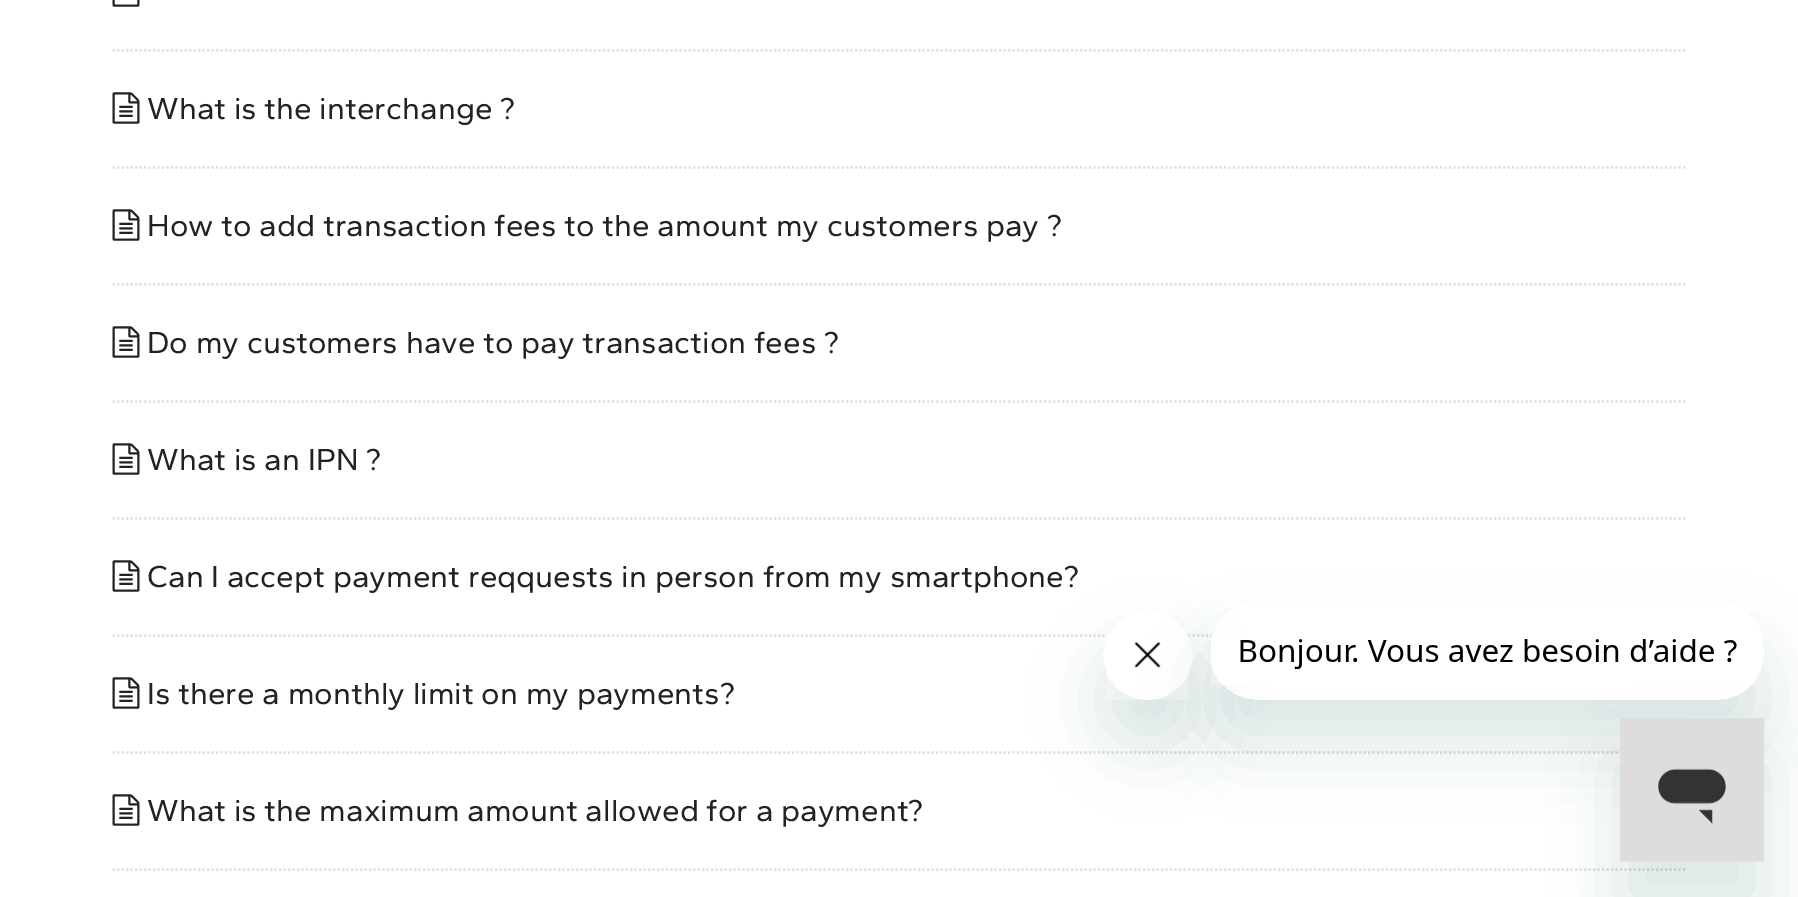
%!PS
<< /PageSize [1798 897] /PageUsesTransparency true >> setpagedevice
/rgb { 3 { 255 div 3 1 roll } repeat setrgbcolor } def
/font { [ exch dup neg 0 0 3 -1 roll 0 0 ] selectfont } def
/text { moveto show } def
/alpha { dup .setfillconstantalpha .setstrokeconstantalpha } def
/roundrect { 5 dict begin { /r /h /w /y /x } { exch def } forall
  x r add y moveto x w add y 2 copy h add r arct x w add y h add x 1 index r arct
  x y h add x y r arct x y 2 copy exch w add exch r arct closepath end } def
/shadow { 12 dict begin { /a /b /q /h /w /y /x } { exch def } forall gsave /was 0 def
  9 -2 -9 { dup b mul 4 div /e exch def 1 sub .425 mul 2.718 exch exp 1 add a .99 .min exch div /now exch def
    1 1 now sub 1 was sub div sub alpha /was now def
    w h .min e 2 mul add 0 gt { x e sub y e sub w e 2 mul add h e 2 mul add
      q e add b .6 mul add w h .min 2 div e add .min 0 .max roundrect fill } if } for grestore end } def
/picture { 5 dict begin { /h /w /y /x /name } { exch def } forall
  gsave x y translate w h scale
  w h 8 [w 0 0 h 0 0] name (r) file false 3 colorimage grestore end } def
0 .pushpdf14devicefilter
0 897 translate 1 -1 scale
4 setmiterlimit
255 255 255 rgb
0 0 1798 897 rectfill
221 221 221 rgb
2.2 setlinewidth
[2.25 2.25] 0 setdash
112.5 50.5 moveto 1575 0 rlineto stroke
(img_01.rgb) 112 0 28 7 picture
112.5 167.5 moveto 1575 0 rlineto stroke
(img_02.rgb) 112 92 28 32 picture
112.5 284.5 moveto 1575 0 rlineto stroke
(img_02.rgb) 112 209 28 32 picture
112.5 401.5 moveto 1575 0 rlineto stroke
(img_02.rgb) 112 326 28 32 picture
112.5 518.5 moveto 1575 0 rlineto stroke
(img_02.rgb) 112 443 28 32 picture
112.5 635.5 moveto 1575 0 rlineto stroke
(img_02.rgb) 112 560 28 32 picture
112.5 752.5 moveto 1575 0 rlineto stroke
(img_02.rgb) 112 677 28 32 picture
112.5 869.5 moveto 1575 0 rlineto stroke
(img_02.rgb) 112 794 28 32 picture
gsave
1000 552 moveto 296 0 rlineto 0 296 rlineto -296 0 rlineto closepath 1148 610 moveto 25 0 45 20 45 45 rcurveto 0 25 -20 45 -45 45 rcurveto -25 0 -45 -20 -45 -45 rcurveto 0 -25 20 -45 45 -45 rcurveto closepath eoclip newpath
23 73 77 rgb
1103 655 90 90 45 34 0.15 shadow
grestore
(img_04.rgb) 1107 634 82 66 picture
gsave
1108 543 moveto 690 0 rlineto 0 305 rlineto -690 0 rlineto closepath 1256 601 moveto 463 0 rlineto 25 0 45 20 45 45 rcurveto 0 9 rlineto 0 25 -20 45 -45 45 rcurveto -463 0 rlineto -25 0 -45 -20 -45 -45 rcurveto 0 -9 rlineto 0 -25 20 -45 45 -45 rcurveto closepath eoclip newpath
23 73 77 rgb
1211 646 553 99 45 34 0.15 shadow
grestore
(img_03.rgb) 1211 634 526 51 picture
23 73 77 rgb
1620 763 144 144 0 34 0.15 shadow
(img_05.rgb) 1620 717 144 145 picture
/Gantari-Regular 31.5 font
33 34 37 rgb
(What is the interchange ?) 147 119 text
(How to add transaction fees to the amount my customers pay ?) 147 236 text
(Do my customers have to pay transaction fees ?) 147 353 text
(What is an IPN ?) 147 470 text
(Can I accept payment reqquests in person from my smartphone?) 147 587 text
(Is there a monthly limit on my payments?) 147 704 text
(What is the maximum amount allowed for a payment?) 147 821 text
.poppdf14devicefilter showpage
